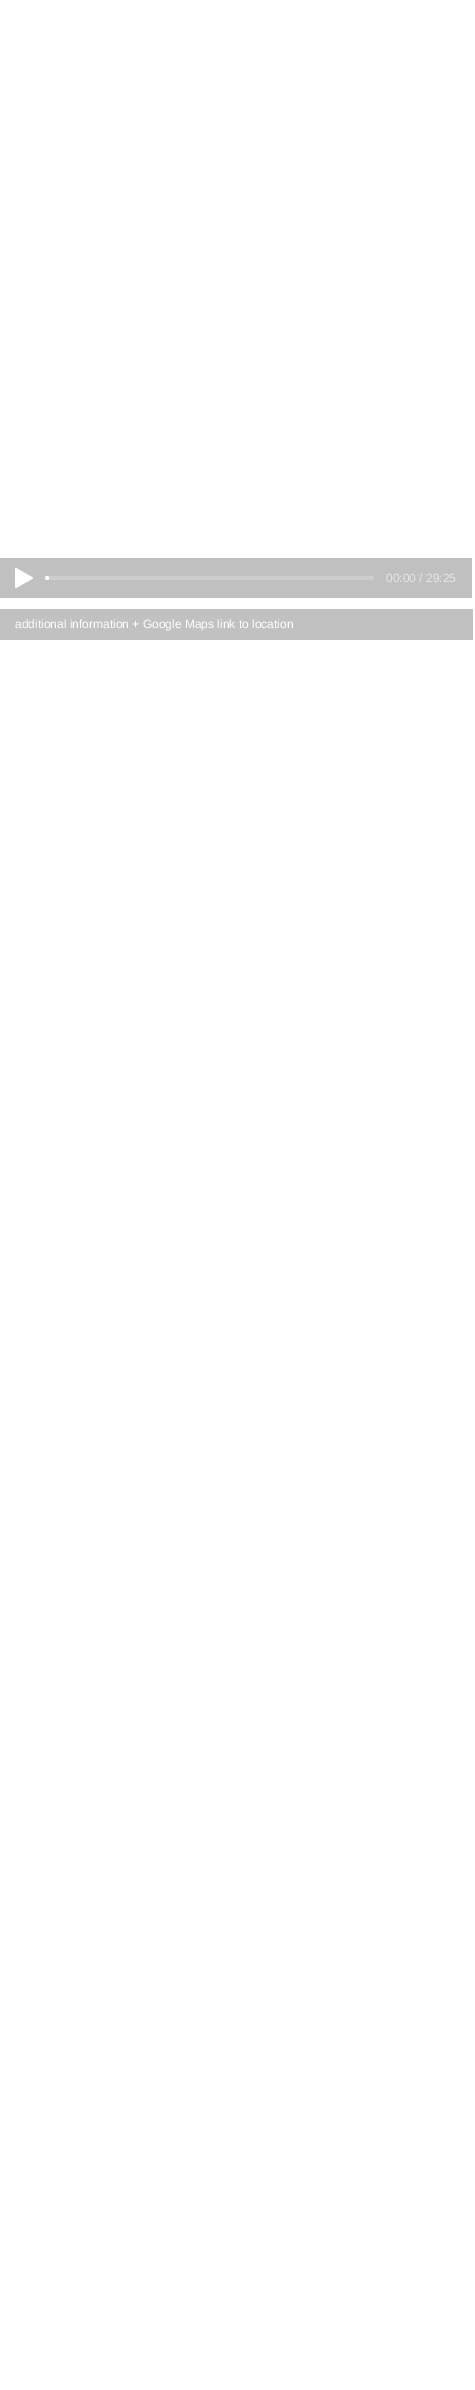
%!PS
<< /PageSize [475 2390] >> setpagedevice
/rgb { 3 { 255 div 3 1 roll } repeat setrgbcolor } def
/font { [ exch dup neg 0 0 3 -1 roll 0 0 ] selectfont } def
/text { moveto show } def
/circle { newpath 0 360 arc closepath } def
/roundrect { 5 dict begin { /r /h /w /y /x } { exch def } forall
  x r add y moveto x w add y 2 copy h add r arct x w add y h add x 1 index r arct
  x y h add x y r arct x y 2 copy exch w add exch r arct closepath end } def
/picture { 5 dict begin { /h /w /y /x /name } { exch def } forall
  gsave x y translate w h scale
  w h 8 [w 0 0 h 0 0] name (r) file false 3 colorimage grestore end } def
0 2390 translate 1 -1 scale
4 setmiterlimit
255 255 255 rgb
0 0 475 2390 rectfill
192 192 192 rgb
0 558 472 40 rectfill
(img_01.rgb) 15 568 18 20 picture
205 205 205 rgb
47 576 327 4 2 roundrect fill
255 255 255 rgb
47 578 2 circle fill
193 193 193 rgb
0 609 473 31 rectfill
/LiberationSans-Regular 12 font
230 230 230 rgb
(00:00 / 29:25) 386 582 text
255 255 255 rgb
(additional information + Google Maps link to location) 15 628 text
showpage
